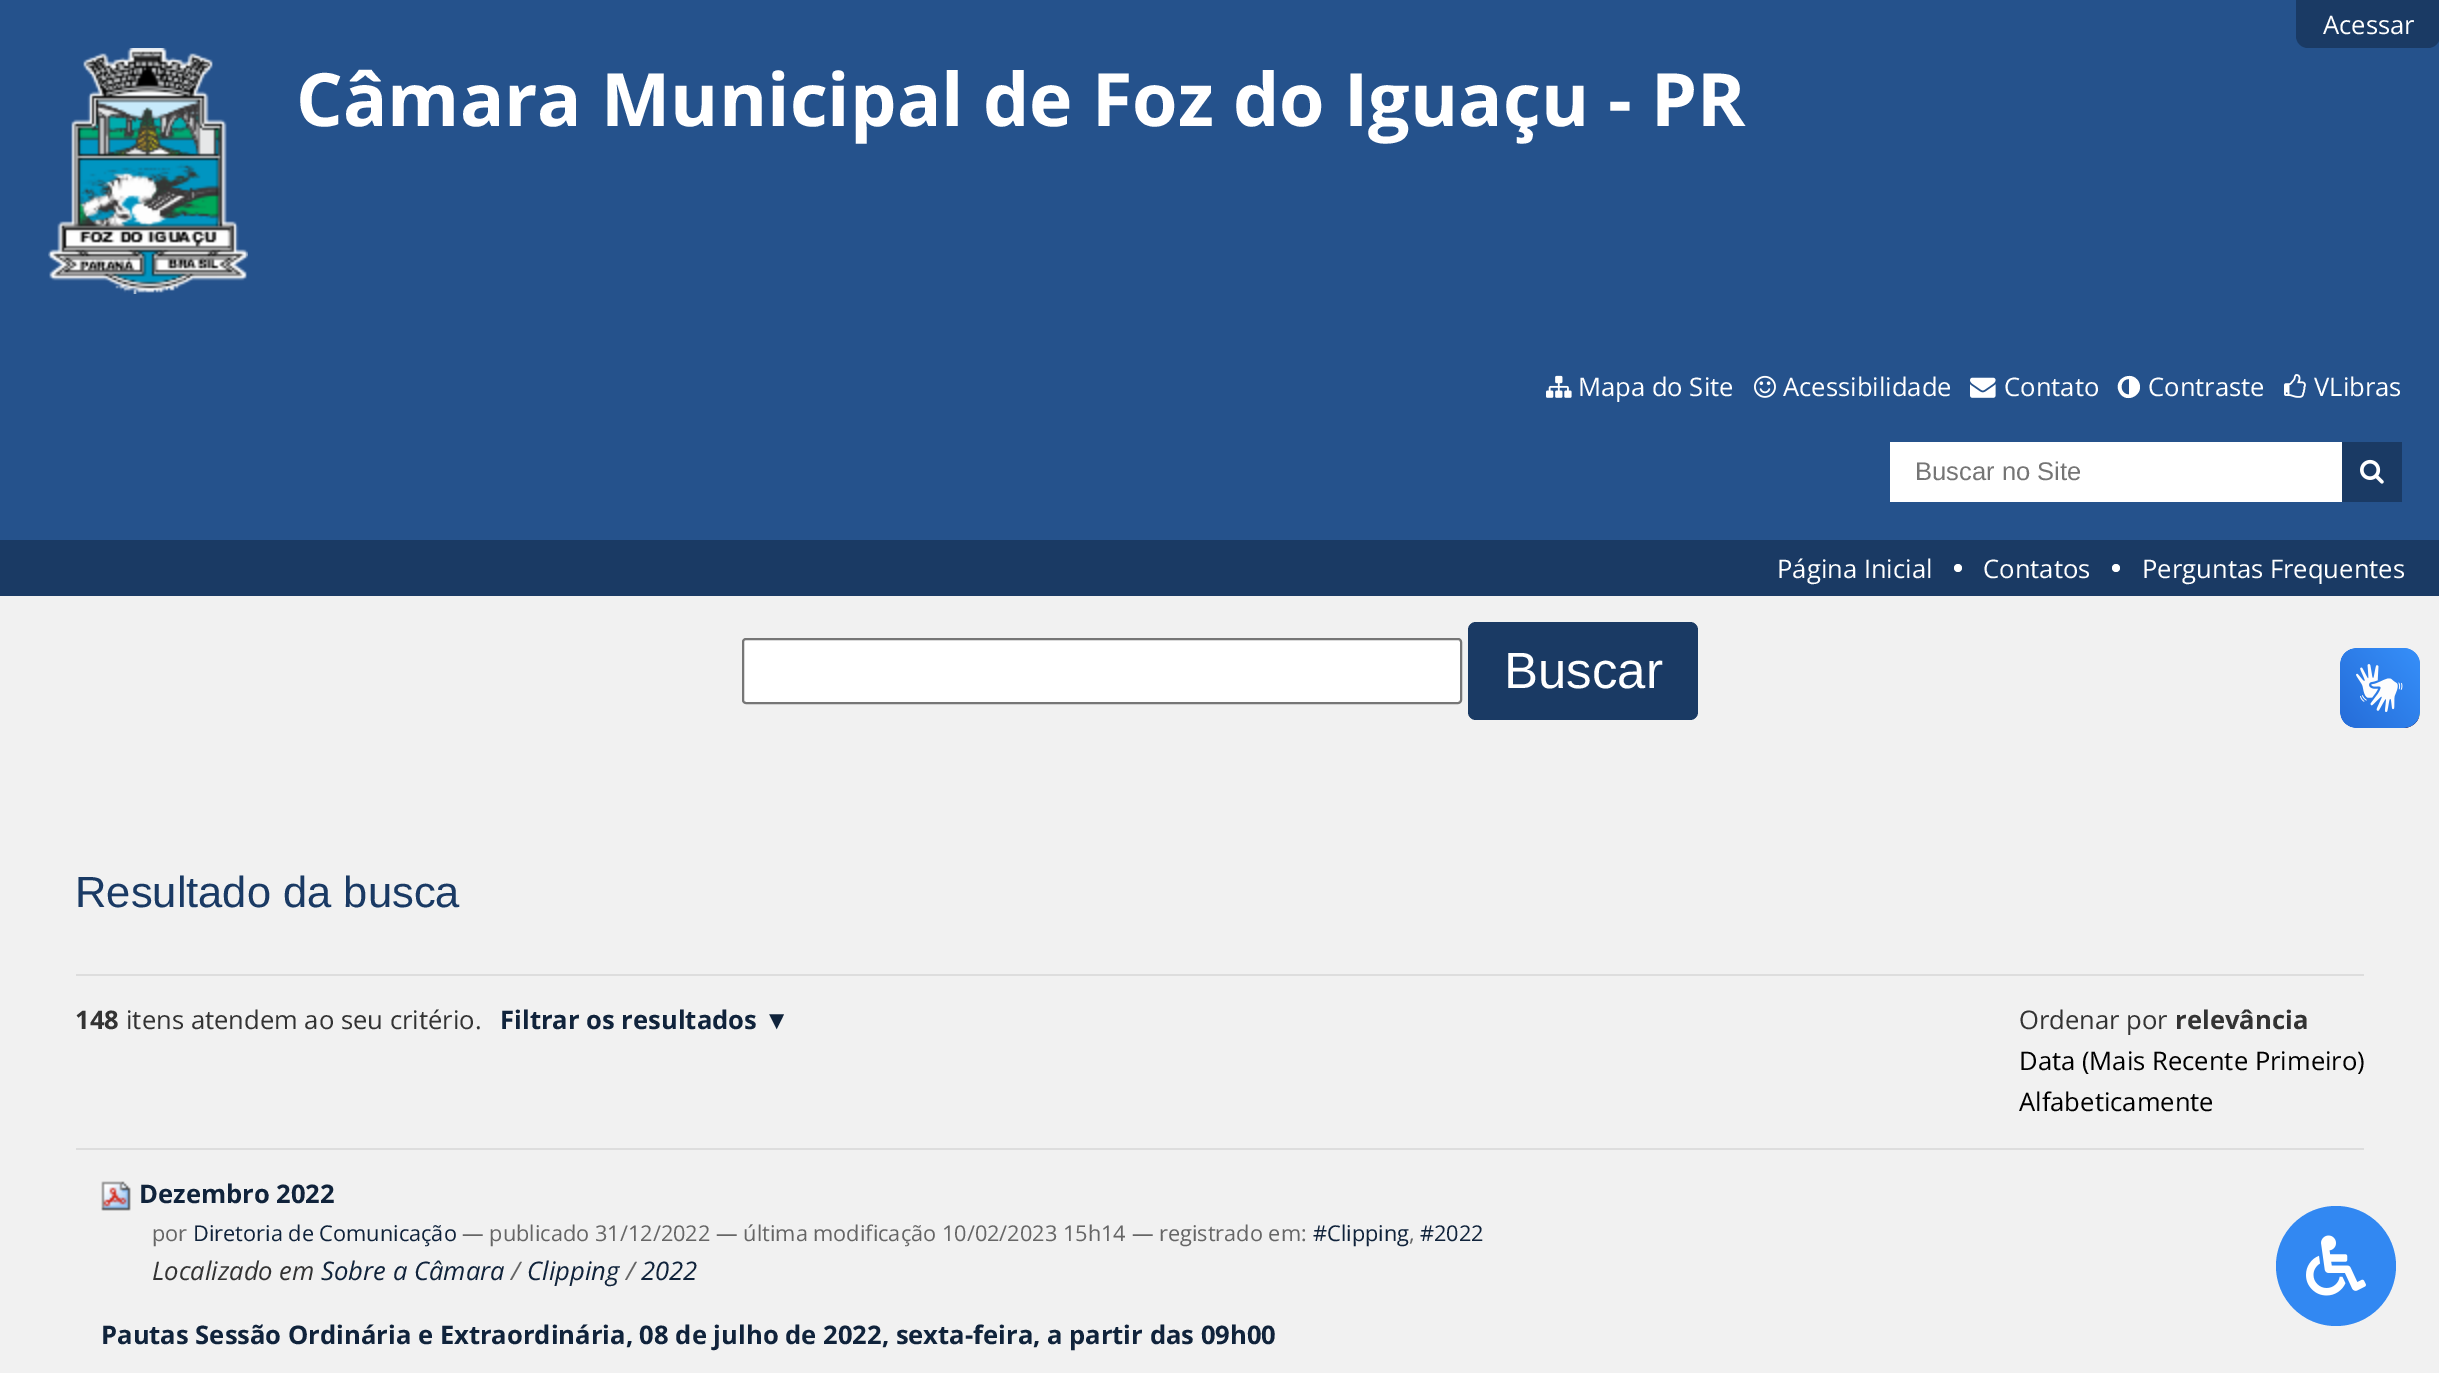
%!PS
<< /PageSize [2439 1373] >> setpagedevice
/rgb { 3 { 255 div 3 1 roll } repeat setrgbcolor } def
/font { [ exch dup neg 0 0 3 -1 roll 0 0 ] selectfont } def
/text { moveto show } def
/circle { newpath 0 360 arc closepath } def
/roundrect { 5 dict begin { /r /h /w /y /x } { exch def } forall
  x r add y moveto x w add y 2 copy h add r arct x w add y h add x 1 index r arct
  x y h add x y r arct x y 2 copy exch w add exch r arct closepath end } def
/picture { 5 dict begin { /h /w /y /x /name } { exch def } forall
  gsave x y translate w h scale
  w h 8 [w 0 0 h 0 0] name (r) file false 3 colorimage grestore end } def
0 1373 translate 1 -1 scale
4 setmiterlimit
241 241 241 rgb
0 0 2439 1373 rectfill
37 82 140 rgb
0 0 2439 540 rectfill
26 58 100 rgb
2296 0 moveto 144 0 rlineto 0 36 rlineto 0 6.5 -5.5 12 -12 12 rcurveto -120 0 rlineto -6.5 0 -12 -5.5 -12 -12 rcurveto closepath fill
(img_01.rgb) 48 48 200 246 picture
(img_02.rgb) 1546 375 26 23 picture
(img_03.rgb) 1754 375 22 23 picture
(img_04.rgb) 1970 377 26 21 picture
255 255 255 rgb
2129 394.5 moveto 0 -15.5 rlineto -10 0 -10 15.5 0 15.5 rcurveto closepath 2138.5 381.5 moveto 7 12.5 -12 23.5 -19 11 rcurveto -7.5 -12.5 11.5 -23.5 19 -11 rcurveto closepath fill
(img_05.rgb) 2284 374 22 24 picture
1890 442 452 60 rectfill
26 58 100 rgb
2342 442 60 60 rectfill
(img_06.rgb) 2360 459 24 25 picture
0 540 2439 56 rectfill
255 255 255 rgb
1958 568 4 circle fill
2116 568 4 circle fill
743 639 718 64 3 roundrect gsave fill grestore
118 118 118 rgb
2 setlinewidth
stroke
26 58 100 rgb
1468 622 230 98 8 roundrect fill
221 221 221 rgb
76 974 2288 2 rectfill
76 1148 2288 2 rectfill
(img_07.rgb) 101 1181 30 30 picture
(img_08.rgb) 2340 648 80 80 picture
(img_09.rgb) 2340 648 80 80 picture
50 136 242 rgb
2336 1266 60 circle fill
(img_10.rgb) 2306 1235 60 61 picture
/OpenSans-Regular 25.6 font
255 255 255 rgb
(Acessar) 2323 34 text
/OpenSans-Bold 73.6 font
(Câmara Municipal de Foz do Iguaçu - PR) 296 126 text
/OpenSans-Regular 25.6 font
(Mapa do Site) 1578 396 text
(Acessibilidade) 1783 396 text
(Contato) 2004 396 text
(Contraste) 2148 396 text
(VLibras) 2314 396 text
/LiberationSans-Regular 25.6 font
117 117 117 rgb
(Buscar no Site) 1915 480 text
/OpenSans-Regular 25.6 font
255 255 255 rgb
(Página Inicial) 1777 578 text
(Contatos) 1983 578 text
(Perguntas Frequentes) 2142 578 text
/LiberationSans-Regular 51 font
(Buscar) 1504 688 text
/LiberationSans-Regular 43.5 font
26 58 100 rgb
(Resultado da busca) 75 907 text
/OpenSans-Bold 25.6 font
51 51 51 rgb
(148) 75 1029 text
/OpenSans-Regular 25.6 font
(itens atendem ao seu critério.) 126 1029 text
/OpenSans-Bold 25.6 font
16 35 59 rgb
(Filtrar os resultados) 500 1029 text
/LiberationSans-Bold 25.6 font
(▼) 764 1029 text
/OpenSans-Bold 25.6 font
51 51 51 rgb
(relevância) 2175 1029 text
/OpenSans-Regular 25.6 font
0 0 0 rgb
(Data \(Mais Recente Primeiro\)) 2019 1070 text
(Alfabeticamente) 2019 1111 text
51 51 51 rgb
(Ordenar por) 2019 1029 text
/OpenSans-Bold 25.6 font
16 35 59 rgb
(Dezembro 2022) 139 1203 text
/OpenSans-Regular 21.75 font
102 102 102 rgb
(por) 152 1241 text
16 35 59 rgb
(Diretoria de Comunicação) 193 1241 text
102 102 102 rgb
(— publicado 31/12/2022 — última modificação 10/02/2023 15h14 — registrado em:) 462 1241 text
16 35 59 rgb
(#Clipping) 1313 1241 text
102 102 102 rgb
(,) 1409 1241 text
16 35 59 rgb
(#2022) 1420 1241 text
/OpenSans-Italic 25.6 font
51 51 51 rgb
(Localizado em) 152 1280 text
16 35 59 rgb
(Sobre a Câmara) 321 1280 text
102 102 102 rgb
(/) 511 1280 text
16 35 59 rgb
(Clipping) 527 1280 text
102 102 102 rgb
(/) 626 1280 text
16 35 59 rgb
(2022) 641 1280 text
/OpenSans-Bold 25.6 font
(Pautas Sessão Ordinária e Extraordinária, 08 de julho de 2022, sexta-feira, a partir das 09h00) 101 1344 text
showpage
